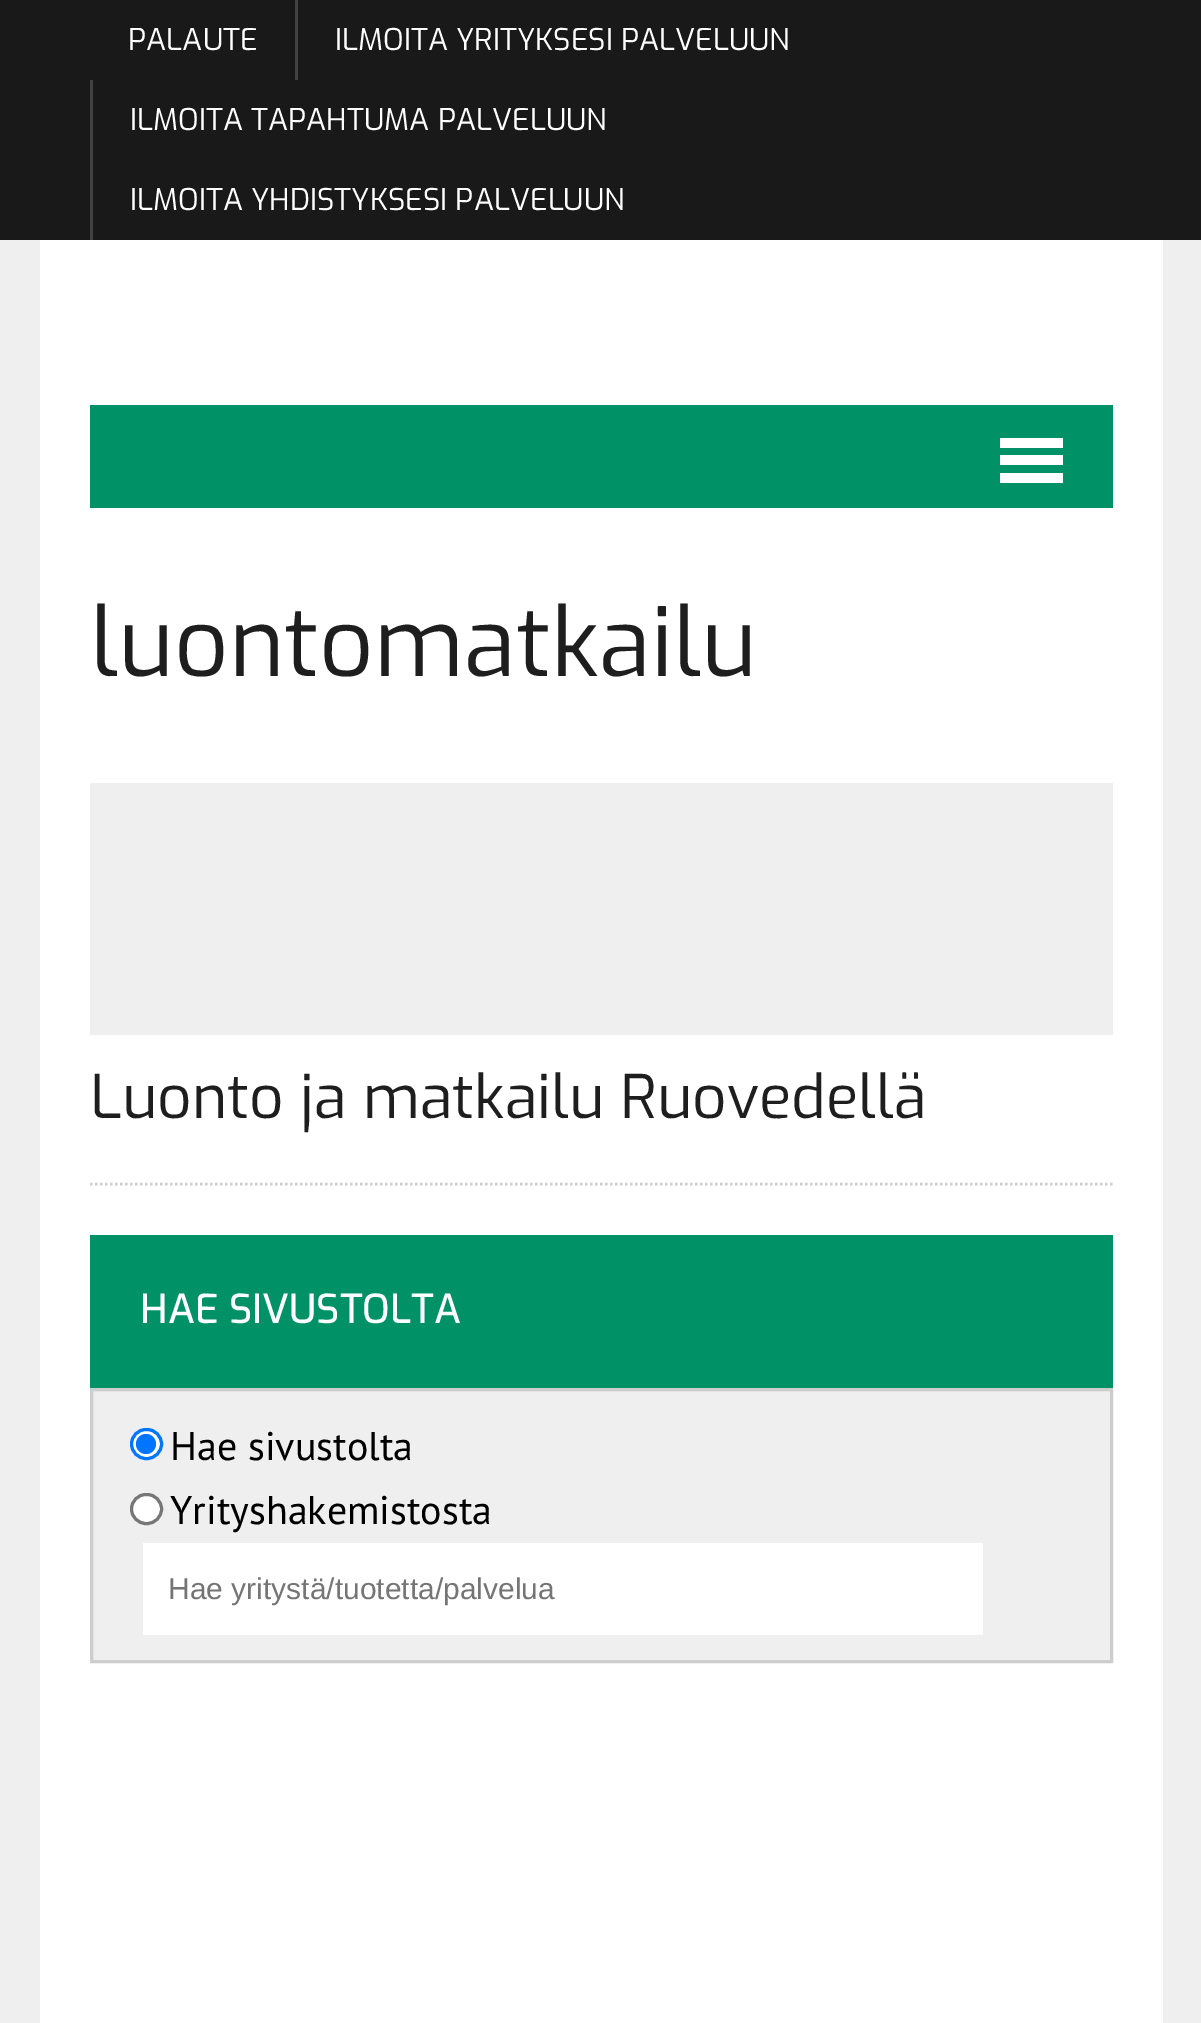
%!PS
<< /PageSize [1201 2023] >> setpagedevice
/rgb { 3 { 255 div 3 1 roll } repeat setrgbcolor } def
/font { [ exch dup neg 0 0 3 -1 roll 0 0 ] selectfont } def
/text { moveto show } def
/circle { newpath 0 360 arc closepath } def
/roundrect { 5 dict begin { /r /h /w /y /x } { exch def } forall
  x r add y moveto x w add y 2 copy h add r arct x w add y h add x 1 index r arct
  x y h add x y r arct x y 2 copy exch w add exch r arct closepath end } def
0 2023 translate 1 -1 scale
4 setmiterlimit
239 239 239 rgb
0 0 1201 2023 rectfill
25 25 25 rgb
0 0 1201 240 rectfill
66 66 66 rgb
295 0 3 80 rectfill
90 80 3 160 rectfill
255 255 255 rgb
40 240 1123 1783 rectfill
0 145 102 rgb
90 405 1023 103 rectfill
255 255 255 rgb
1000 438 63 10 rectfill
1000 455 63 10 rectfill
1000 473 63 10 rectfill
239 239 239 rgb
90 783 1023 252 rectfill
205 205 205 rgb
2.5 setlinewidth
[2.5 2.5] 0 setdash
90 1184 moveto 1022.5 0 rlineto stroke
0 145 102 rgb
90 1235 1023 153 rectfill
239 239 239 rgb
91.5 1389.5 moveto 1020 0 rlineto 0 272 rlineto -1020 0 rlineto closepath gsave fill grestore
205 205 205 rgb
3 setlinewidth
[] 0 setdash
stroke
255 255 255 rgb
131.5 1429.5 30 29 14.5 roundrect gsave fill grestore
0 117 255 rgb
stroke
146 1444 10 circle fill
255 255 255 rgb
131.5 1494.5 30 29 14.5 roundrect gsave fill grestore
118 118 118 rgb
stroke
255 255 255 rgb
143 1543 840 92 rectfill
/Exo-Regular 30 font
(PALAUTE) 128 50 text
(ILMOITA YRITYKSESI PALVELUUN) 335 50 text
(ILMOITA TAPAHTUMA PALVELUUN) 130 130 text
(ILMOITA YHDISTYKSESI PALVELUUN) 130 210 text
/Exo-Regular 95 font
31 30 30 rgb
(luontomatkailu) 90 676 text
/Exo-Regular 60 font
(Luonto ja matkailu Ruovedellä) 90 1118 text
/Exo-Medium 40 font
255 255 255 rgb
(HAE SIVUSTOLTA) 140 1323 text
/PTSans-Regular 40 font
0 0 0 rgb
(Hae sivustolta) 170 1460 text
(Yrityshakemistosta) 170 1524 text
/LiberationSans-Regular 30 font
117 117 117 rgb
(Hae yritystä/tuotetta/palvelua) 168 1599 text
showpage
